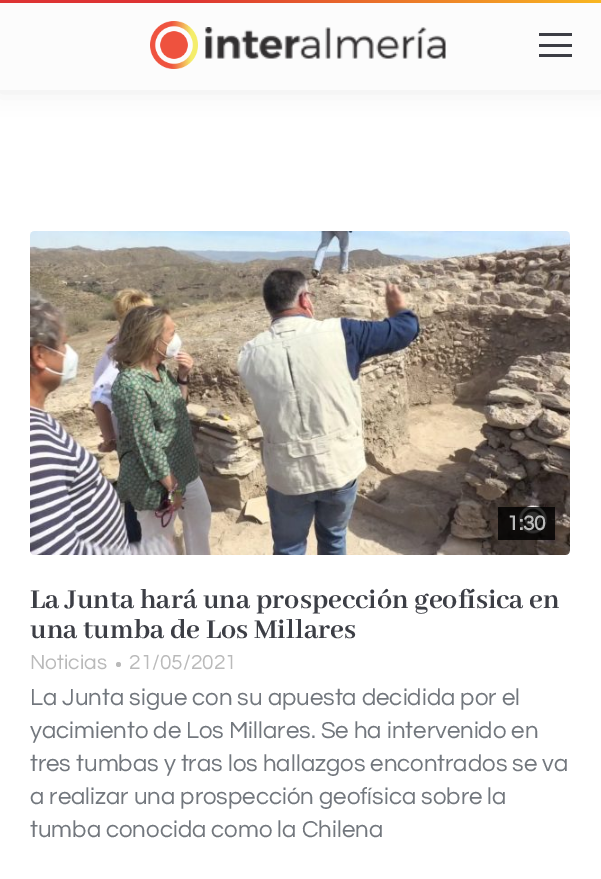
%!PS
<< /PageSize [601 879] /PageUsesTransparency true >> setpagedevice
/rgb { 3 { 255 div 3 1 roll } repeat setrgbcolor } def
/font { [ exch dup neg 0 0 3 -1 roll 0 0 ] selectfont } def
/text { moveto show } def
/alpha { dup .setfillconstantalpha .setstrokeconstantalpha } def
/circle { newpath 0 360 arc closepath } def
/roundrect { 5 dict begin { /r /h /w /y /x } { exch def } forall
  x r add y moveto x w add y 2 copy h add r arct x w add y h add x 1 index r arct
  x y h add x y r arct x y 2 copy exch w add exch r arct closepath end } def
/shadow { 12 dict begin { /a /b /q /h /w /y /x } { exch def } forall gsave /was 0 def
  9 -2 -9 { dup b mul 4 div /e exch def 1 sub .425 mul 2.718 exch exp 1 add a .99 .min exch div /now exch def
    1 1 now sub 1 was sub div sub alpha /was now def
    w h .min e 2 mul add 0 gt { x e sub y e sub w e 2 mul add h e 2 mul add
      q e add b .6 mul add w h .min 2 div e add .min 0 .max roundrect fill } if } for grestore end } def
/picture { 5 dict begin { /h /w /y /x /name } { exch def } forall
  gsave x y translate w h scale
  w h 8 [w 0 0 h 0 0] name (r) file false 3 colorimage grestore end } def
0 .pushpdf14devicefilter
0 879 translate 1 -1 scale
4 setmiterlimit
255 255 255 rgb
0 0 601 879 rectfill
0 0 0 rgb
-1 -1 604 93 0 11 0.07 shadow
gsave 0 0 moveto 601 0 rlineto 0 3 rlineto -601 0 rlineto closepath clip newpath
<< /ShadingType 2 /ColorSpace /DeviceRGB /Coords [150 -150 452 153] /Extend [true true] /Function << /FunctionType 3 /Domain [0 1] /Functions [<< /FunctionType 2 /Domain [0 1] /C0 [0.867 0.2 0.2] /C1 [0.867 0.2 0.2] /N 1 >> << /FunctionType 2 /Domain [0 1] /C0 [0.867 0.2 0.2] /C1 [0.976 0.725 0.133] /N 1 >>] /Bounds [0.3] /Encode [0 1 0 1] >> >> shfill grestore
252 252 252 rgb
0 3 601 87 rectfill
(img_01.rgb) 150 21 48 48 picture
(img_02.rgb) 205 27 241 32 picture
60 62 69 rgb
539 44 33 3 rectfill
539 33 33 3 rectfill
539 54 33 3 rectfill
(img_03.rgb) 30 231 540 324 picture
0.81 alpha
0 0 0 rgb
498 507 57 33 rectfill
1 alpha
186 186 186 rgb
118.5 664.5 2.5 circle fill
/Questrial-Bold 21 font
(1:30) 507 530 text
/AbhayaLibre-Bold 30 font
60 62 69 rgb
(La Junta hará una prospección geofísica en) 30 608 text
(una tumba de Los Millares) 30 638 text
/Questrial-Regular 21 font
186 186 186 rgb
(Noticias) 30 669 text
(21/05/2021) 129 669 text
/Questrial-Regular 24 font
114 119 125 rgb
(La Junta sigue con su apuesta decidida por el) 30 705 text
(yacimiento de Los Millares. Se ha intervenido en) 30 738 text
(tres tumbas y tras los hallazgos encontrados se va) 30 771 text
(a realizar una prospección geofísica sobre la) 30 804 text
(tumba conocida como la Chilena) 30 837 text
.poppdf14devicefilter showpage
